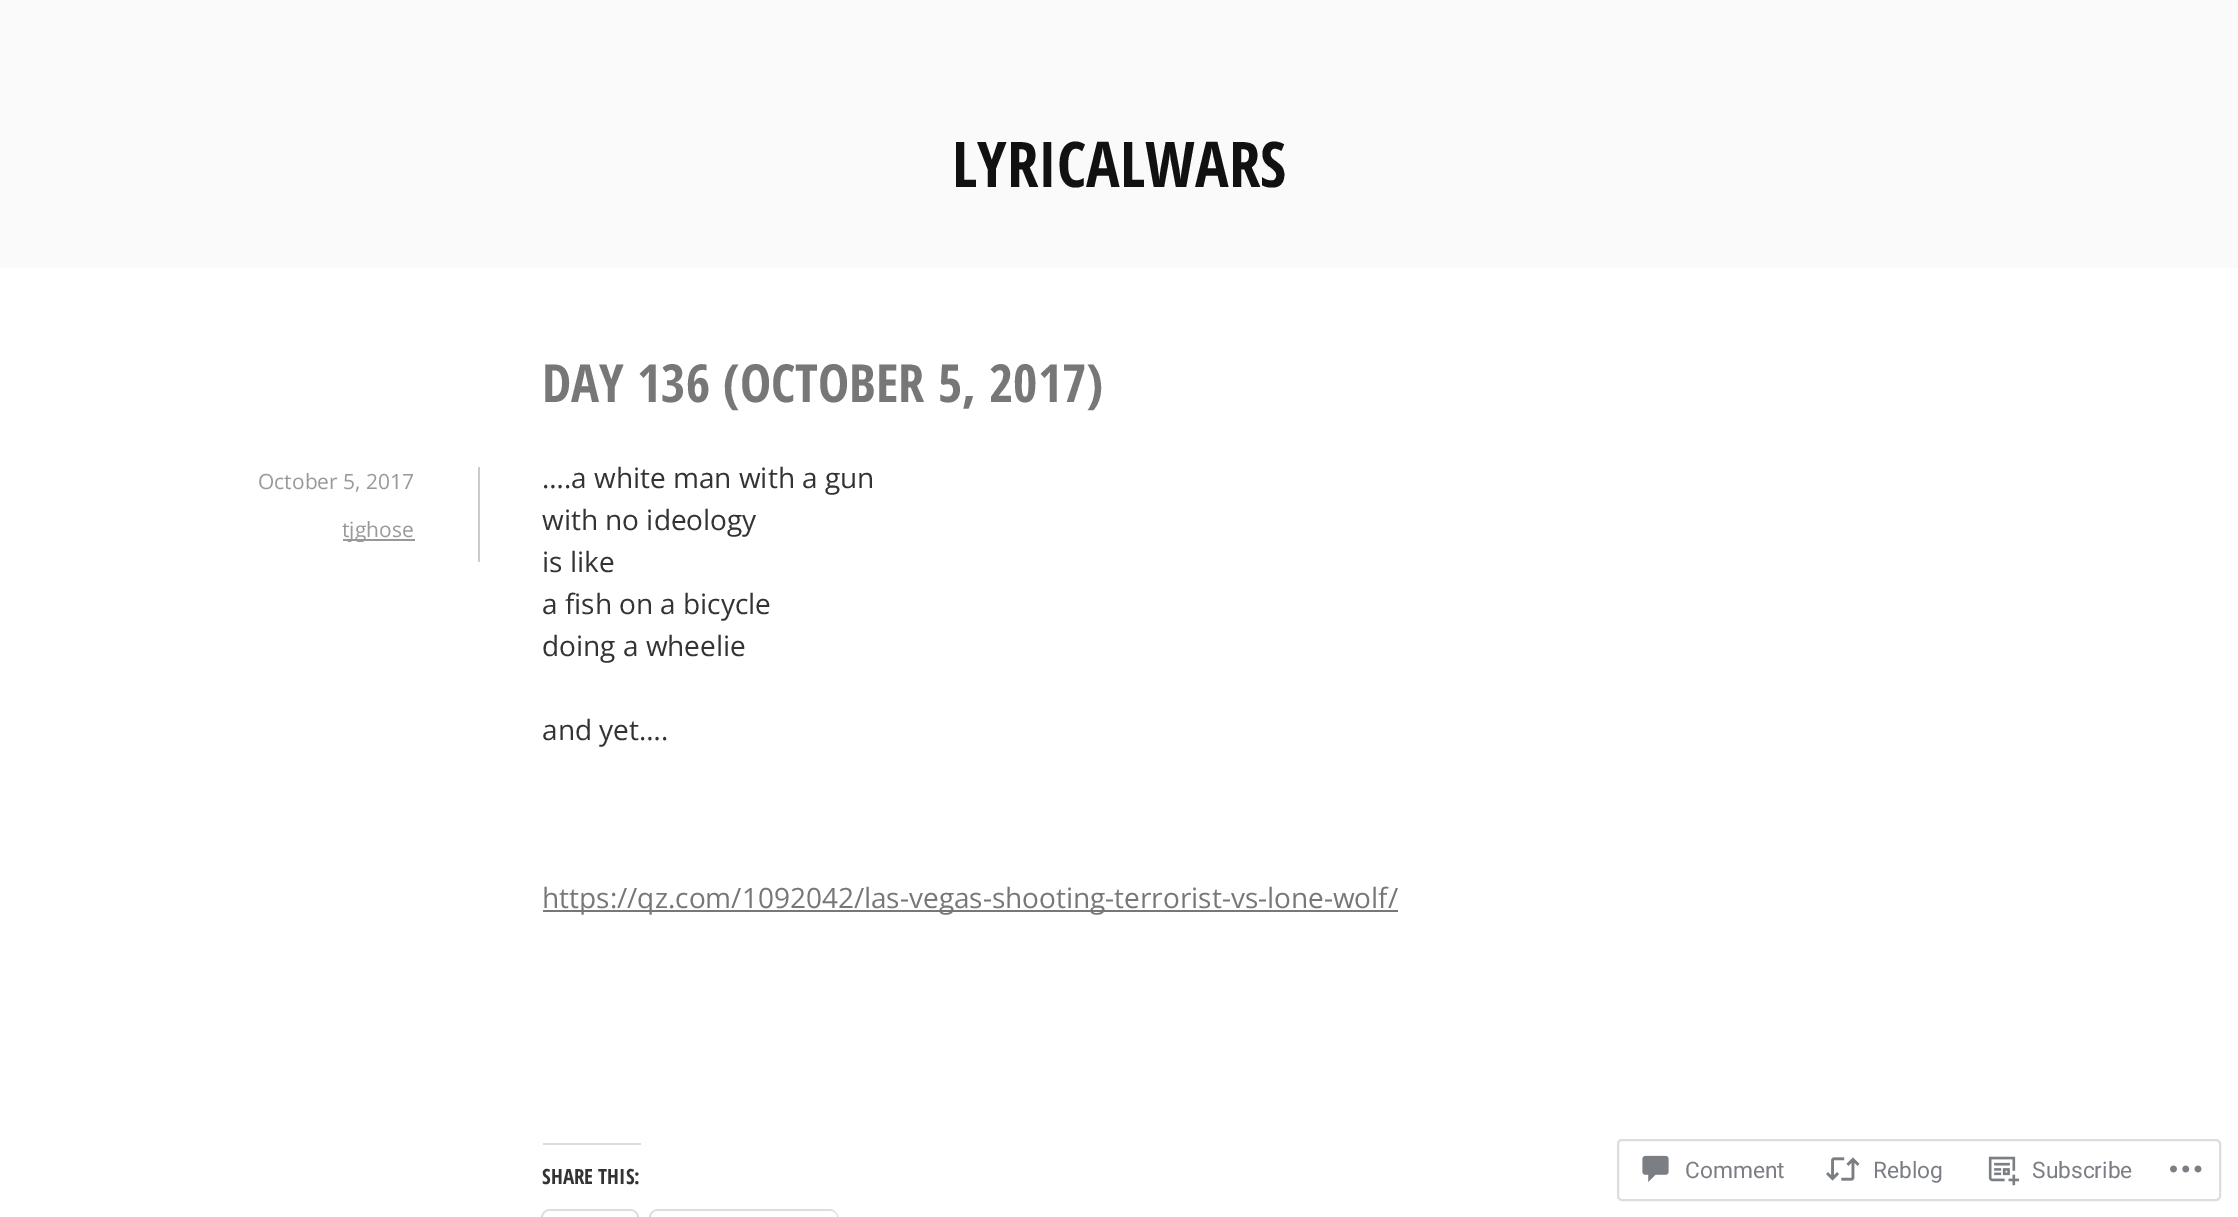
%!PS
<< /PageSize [2238 1217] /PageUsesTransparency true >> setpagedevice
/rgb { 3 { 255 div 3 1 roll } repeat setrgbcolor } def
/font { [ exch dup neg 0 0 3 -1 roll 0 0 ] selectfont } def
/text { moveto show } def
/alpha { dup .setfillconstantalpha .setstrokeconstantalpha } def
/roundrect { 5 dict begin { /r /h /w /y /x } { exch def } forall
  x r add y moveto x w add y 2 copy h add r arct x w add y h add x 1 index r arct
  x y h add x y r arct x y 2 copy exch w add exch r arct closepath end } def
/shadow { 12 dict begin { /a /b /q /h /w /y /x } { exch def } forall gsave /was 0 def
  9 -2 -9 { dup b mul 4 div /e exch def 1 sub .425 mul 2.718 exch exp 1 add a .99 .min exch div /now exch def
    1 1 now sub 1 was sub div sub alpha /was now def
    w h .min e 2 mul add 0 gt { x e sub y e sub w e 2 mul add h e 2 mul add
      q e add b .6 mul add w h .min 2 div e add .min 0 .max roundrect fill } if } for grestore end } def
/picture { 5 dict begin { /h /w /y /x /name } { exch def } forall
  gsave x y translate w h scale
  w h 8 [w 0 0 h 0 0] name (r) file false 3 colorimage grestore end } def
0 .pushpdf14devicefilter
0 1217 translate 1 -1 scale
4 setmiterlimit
255 255 255 rgb
0 0 2238 1217 rectfill
250 250 250 rgb
0 0 2238 268 rectfill
204 204 204 rgb
478 467 2 95 rectfill
153 153 153 rgb
343 539 72 2 rectfill
119 119 119 rgb
543 910 855 2 rectfill
220 220 222 rgb
543 1143 98 2 rectfill
224 224 224 rgb
2 setlinewidth
542 1210 96 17 8 roundrect stroke
0 0 0 rgb
543 1213 94 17 7 2 0.12 shadow
255 255 255 rgb
543 1211 94 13 7 roundrect fill
224 224 224 rgb
650 1210 187 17 8 roundrect stroke
0 0 0 rgb
651 1213 186 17 7 2 0.12 shadow
255 255 255 rgb
651 1211 186 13 7 roundrect fill
221 221 223 rgb
1618 1140 602 60 4 roundrect stroke
(img_01.rgb) 1642 1155 27 27 picture
(img_02.rgb) 1826 1157 34 24 picture
(img_03.rgb) 1988 1156 32 30 picture
(img_04.rgb) 2170 1165 32 8 picture
/OpenSansCondensed-Bold 63 font
17 17 17 rgb
(LYRICALWARS) 952 187 text
/OpenSansCondensed-Bold 52.5 font
119 119 119 rgb
(DAY 136 \(OCTOBER 5, 2017\)) 542 402 text
/OpenSans-Regular 21 font
153 153 153 rgb
(October 5, 2017) 258 489 text
(tjghose) 342 537 text
/OpenSans-Regular 28 font
51 51 51 rgb
(….a white man with a gun) 542 488 text
(with no ideology) 542 530 text
(is like) 542 572 text
(a fish on a bicycle) 542 614 text
(doing a wheelie) 542 656 text
(and yet….) 542 740 text
119 119 119 rgb
(https://qz.com/1092042/las-vegas-shooting-terrorist-vs-lone-wolf/) 542 908 text
/OpenSansCondensed-Bold 21 font
51 51 51 rgb
(SHARE THIS:) 542 1184 text
/Roboto-Regular 22.75 font
123 127 133 rgb
(Comment) 1685 1178 text
(Reblog) 1873 1178 text
(Subscribe) 2032 1178 text
.poppdf14devicefilter showpage
